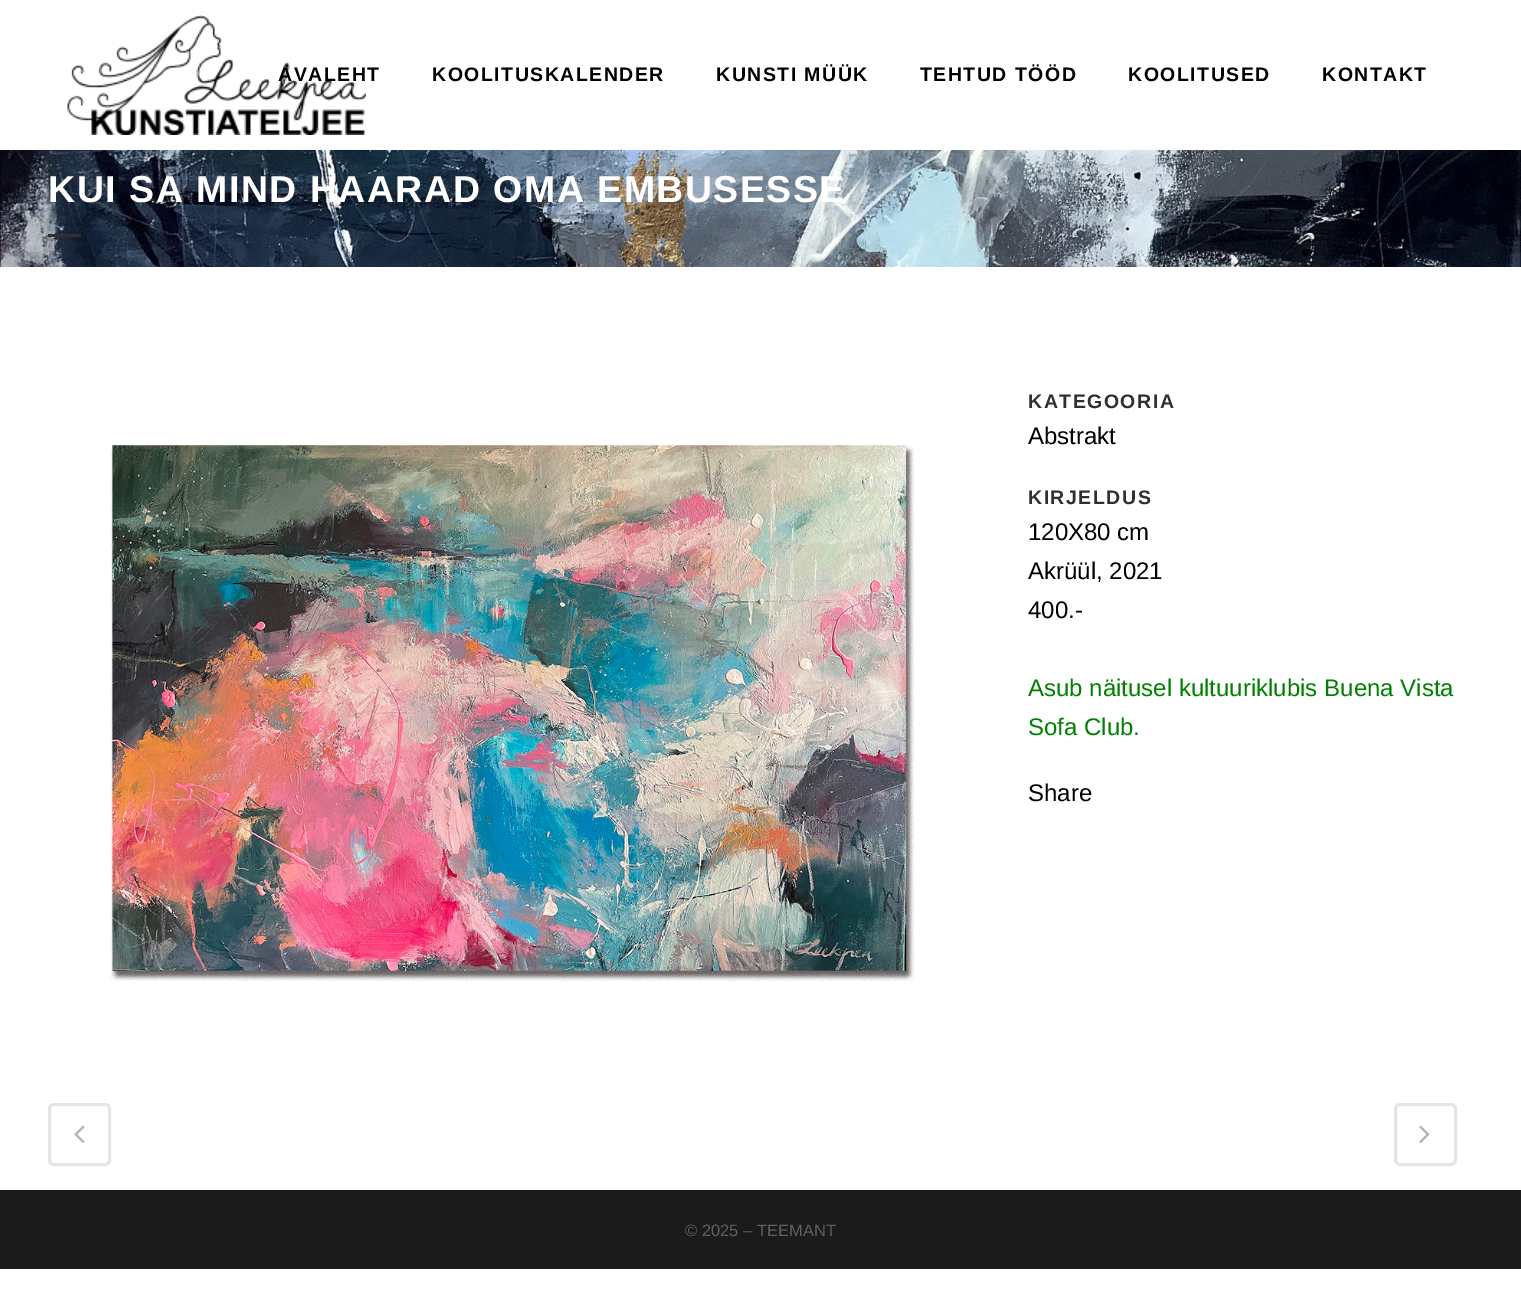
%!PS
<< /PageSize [1521 1308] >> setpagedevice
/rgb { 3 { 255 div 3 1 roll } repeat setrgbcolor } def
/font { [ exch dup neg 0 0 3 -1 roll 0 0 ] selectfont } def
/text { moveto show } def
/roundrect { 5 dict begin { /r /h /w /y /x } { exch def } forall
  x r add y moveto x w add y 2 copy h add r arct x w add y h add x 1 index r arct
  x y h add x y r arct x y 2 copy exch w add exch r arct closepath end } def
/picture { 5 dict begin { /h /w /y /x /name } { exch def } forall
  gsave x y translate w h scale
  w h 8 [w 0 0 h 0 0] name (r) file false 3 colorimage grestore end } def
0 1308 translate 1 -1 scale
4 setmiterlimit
255 255 255 rgb
0 0 1521 1308 rectfill
(img_01.rgb) 67 15 299 120 picture
(img_02.rgb) 0 150 1521 117 picture
48 48 48 rgb
48 234 33 3 rectfill
(img_03.rgb) 110 445 805 537 picture
229 229 229 rgb
3 setlinewidth
49.5 1104.5 60 60 4.5 roundrect stroke
(img_04.rgb) 74 1125 11 18 picture
1395.5 1104.5 60 60 4.5 roundrect stroke
(img_05.rgb) 1419 1125 11 18 picture
27 27 27 rgb
0 1190 1521 79 rectfill
/LiberationSans-Bold 19.5 font
0 0 0 rgb
278 81 moveto 1.5 0 (AVALEHT) ashow
432 81 moveto 1.5 0 (KOOLITUSKALENDER) ashow
716 81 moveto 1.5 0 (KUNSTI MÜÜK) ashow
920 81 moveto 1.5 0 (TEHTUD TÖÖD) ashow
1128 81 moveto 1.5 0 (KOOLITUSED) ashow
1322 81 moveto 1.5 0 (KONTAKT) ashow
/LiberationSans-Bold 37.5 font
255 255 255 rgb
48 202 moveto 1.5 0 (KUI SA MIND HAARAD OMA EMBUSESSE) ashow
/LiberationSans-Bold 19.5 font
48 48 48 rgb
1028 408 moveto 1.5 0 (KATEGOORIA) ashow
/LiberationSans-Regular 24 font
0 0 0 rgb
(Abstrakt) 1028 444 text
/LiberationSans-Bold 19.5 font
48 48 48 rgb
1028 504 moveto 1.5 0 (KIRJELDUS) ashow
/LiberationSans-Regular 24 font
0 0 0 rgb
(120X80 cm) 1028 540 text
(Akrüül, 2021) 1028 579 text
(400.-) 1028 618 text
0 128 0 rgb
(Asub näitusel kultuuriklubis Buena Vista) 1028 696 text
(Sofa Club.) 1028 735 text
0 0 0 rgb
(Share) 1028 801 text
/LiberationSans-Regular 16.5 font
96 96 96 rgb
(© 2025 – TEEMANT) 685 1236 text
showpage
